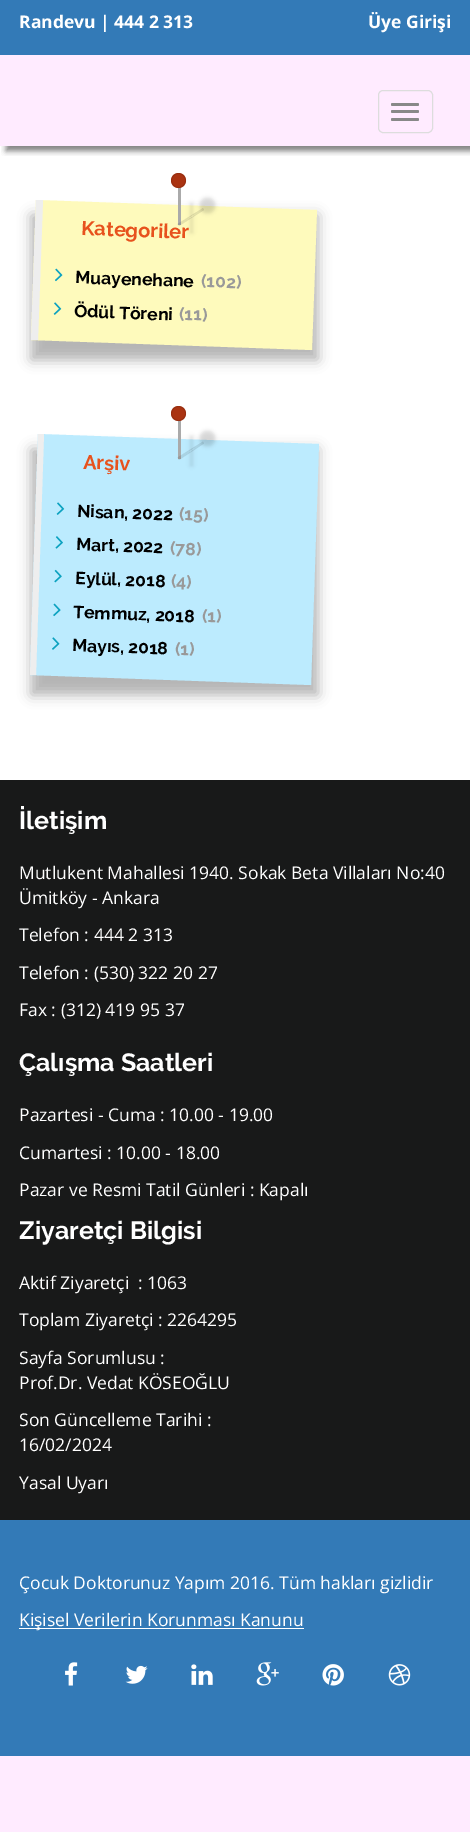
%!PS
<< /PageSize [470 1832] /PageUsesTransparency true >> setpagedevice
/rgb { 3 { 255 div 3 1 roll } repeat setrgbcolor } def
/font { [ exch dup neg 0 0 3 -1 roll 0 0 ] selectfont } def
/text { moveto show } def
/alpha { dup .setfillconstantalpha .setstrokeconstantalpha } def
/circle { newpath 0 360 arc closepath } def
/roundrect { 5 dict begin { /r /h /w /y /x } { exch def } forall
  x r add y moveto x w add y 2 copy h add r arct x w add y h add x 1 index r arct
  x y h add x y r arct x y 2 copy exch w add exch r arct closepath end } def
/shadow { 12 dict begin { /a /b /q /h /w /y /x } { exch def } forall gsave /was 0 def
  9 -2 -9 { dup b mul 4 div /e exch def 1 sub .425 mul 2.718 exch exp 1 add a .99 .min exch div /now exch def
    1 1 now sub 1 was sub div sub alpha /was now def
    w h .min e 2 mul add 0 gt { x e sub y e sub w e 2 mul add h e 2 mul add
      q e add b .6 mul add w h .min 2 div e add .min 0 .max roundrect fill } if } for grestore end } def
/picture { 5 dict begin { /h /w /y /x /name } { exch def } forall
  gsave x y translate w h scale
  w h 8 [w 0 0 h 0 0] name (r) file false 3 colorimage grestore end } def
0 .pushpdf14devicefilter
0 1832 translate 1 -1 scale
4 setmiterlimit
255 235 255 rgb
0 0 470 1832 rectfill
51 122 183 rgb
0 0 470 55 rectfill
221 221 221 rgb
378.5 90.5 54 42 4.5 roundrect stroke
136 136 136 rgb
391 103 28 3 1.5 roundrect fill
391 110 28 3 1.5 roundrect fill
391 118 28 3 1.5 roundrect fill
255 255 255 rgb
0 146 470 634 rectfill
gsave
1 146 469 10 rectclip
0 0 0 rgb
6 141 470 10 0 3 0.5 shadow
grestore
0 0 0 rgb
31 215 287 145 0 6.5 0.3 shadow
254 250 188 rgb
36 200 moveto 281 10 rlineto -5 140 rlineto -281 -10 rlineto closepath fill
gsave
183 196 moveto 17 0 rlineto 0 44 rlineto -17 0 rlineto closepath 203 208 moveto 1 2 rlineto -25 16 rlineto -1.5 -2 rlineto closepath eoclip newpath
0 0 0 rgb
190 203 3 30 0 2 0.1 shadow
grestore
238 238 238 rgb
36 200 moveto 7 0 rlineto -5 140 rlineto -7 0 rlineto closepath fill
(img_01.rgb) 55 268 8 14 picture
(img_02.rgb) 53 302 9 13 picture
0 0 0 rgb
31 449 287 246 0 6.5 0.3 shadow
188 235 254 rgb
38 434 moveto 281 10 rlineto -8 241 rlineto -281 -10 rlineto closepath fill
170 170 170 rgb
178 419 3 40 rectfill
gsave
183 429 moveto 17 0 rlineto 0 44 rlineto -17 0 rlineto closepath 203 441.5 moveto 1 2 rlineto -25 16.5 rlineto -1.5 -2.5 rlineto closepath eoclip newpath
0 0 0 rgb
190 436 3 30 0 2 0.1 shadow
grestore
0.1 alpha
0 0 0 rgb
203 441.5 moveto 1 2 rlineto -25 16.5 rlineto -1.5 -2.5 rlineto closepath fill
1 alpha
200 431 15 15 7.5 2 0.15 shadow
170 51 17 rgb
178.5 413.5 7.5 circle fill
0.1 alpha
0 0 0 rgb
178.5 413.5 7 circle stroke
1 alpha
238 238 238 rgb
38 434 moveto 6 0 rlineto -8 241 rlineto -6 0 rlineto closepath fill
(img_03.rgb) 56 502 9 13 picture
(img_04.rgb) 55 536 8 13 picture
(img_05.rgb) 54 569 8 14 picture
(img_06.rgb) 53 603 8 14 picture
(img_07.rgb) 52 637 8 13 picture
24 25 25 rgb
0 780 470 740 rectfill
51 122 183 rgb
0 1520 470 236 rectfill
255 255 255 rgb
19 1628 285 1 rectfill
(img_08.rgb) 65 1662 13 24 picture
(img_09.rgb) 125 1665 23 19 picture
(img_10.rgb) 191 1664 22 21 picture
(img_11.rgb) 256 1662 23 24 picture
(img_12.rgb) 322 1664 22 22 picture
(img_13.rgb) 388 1664 23 22 picture
/OpenSans-Bold 17.5 font
(Randevu | 444 2 313) 19 28 text
(Üye Girişi) 368 28 text
/Raleway-Bold 20 font
231 82 29 rgb
gsave 81 235 translate 2 rotate 0 0 moveto (Kategoriler) show grestore
170 170 170 rgb
178 185 3 40 rectfill
170 51 17 rgb
178.5 180.5 7.5 circle fill
0.1 alpha
0 0 0 rgb
178.5 180.5 7 circle stroke
203 208 moveto 1 2 rlineto -25 16 rlineto -1.5 -2 rlineto closepath fill
1 alpha
200 198 15 15 7.5 2 0.15 shadow
/Raleway-Bold 17.5 font
gsave 75 283 translate 2 rotate 0 0 moveto (Muayenehane) show grestore
153 153 153 rgb
gsave 201 287 translate 2 rotate 0 0 moveto (\(102\)) show grestore
0 0 0 rgb
gsave 74 317 translate 2 rotate 0 0 moveto (Ödül Töreni) show grestore
153 153 153 rgb
gsave 179 320 translate 2 rotate 0 0 moveto (\(11\)) show grestore
/Raleway-Bold 20 font
231 82 29 rgb
gsave 83 469 translate 2 rotate 0 0 moveto (Arşiv) show grestore
/Raleway-Bold 17.5 font
0 0 0 rgb
gsave 77 517 translate 2 rotate 0 0 moveto (Nisan, 2022) show grestore
153 153 153 rgb
gsave 179 520 translate 2 rotate 0 0 moveto (\(15\)) show grestore
0 0 0 rgb
gsave 76 550 translate 2 rotate 0 0 moveto (Mart, 2022) show grestore
153 153 153 rgb
gsave 170 554 translate 2 rotate 0 0 moveto (\(78\)) show grestore
0 0 0 rgb
gsave 75 584 translate 2 rotate 0 0 moveto (Eylül, 2018) show grestore
153 153 153 rgb
gsave 171 587 translate 2 rotate 0 0 moveto (\(4\)) show grestore
0 0 0 rgb
gsave 73 618 translate 2 rotate 0 0 moveto (Temmuz, 2018) show grestore
153 153 153 rgb
gsave 202 622 translate 2 rotate 0 0 moveto (\(1\)) show grestore
0 0 0 rgb
gsave 72 651 translate 2 rotate 0 0 moveto (Mayıs, 2018) show grestore
153 153 153 rgb
gsave 175 655 translate 2 rotate 0 0 moveto (\(1\)) show grestore
/Raleway-Bold 25 font
255 255 255 rgb
(İletişim) 19 829 text
/OpenSans-Regular 17.5 font
(Mutlukent Mahallesi 1940. Sokak Beta Villaları No:40) 19 879 text
(Ümitköy - Ankara) 19 904 text
(Telefon : 444 2 313) 19 941 text
(Telefon : \(530\) 322 20 27) 19 979 text
(Fax : \(312\) 419 95 37) 19 1016 text
/Raleway-Bold 25 font
(Çalışma Saatleri) 19 1071 text
/OpenSans-Regular 17.5 font
(Pazartesi - Cuma : 10.00 - 19.00) 19 1121 text
(Cumartesi : 10.00 - 18.00) 19 1159 text
(Pazar ve Resmi Tatil Günleri : Kapalı) 19 1196 text
/Raleway-Bold 25 font
(Ziyaretçi Bilgisi) 19 1239 text
/OpenSans-Regular 17.5 font
(Aktif Ziyaretçi  : 1063) 19 1289 text
(Toplam Ziyaretçi : 2264295) 19 1326 text
(Sayfa Sorumlusu :) 19 1364 text
(Prof.Dr. Vedat KÖSEOĞLU) 19 1389 text
(Son Güncelleme Tarihi :) 19 1426 text
(16/02/2024) 19 1451 text
(Yasal Uyarı) 19 1489 text
(Çocuk Doktorunuz Yapım 2016. Tüm hakları gizlidir) 19 1589 text
(Kişisel Verilerin Korunması Kanunu) 19 1626 text
.poppdf14devicefilter showpage
